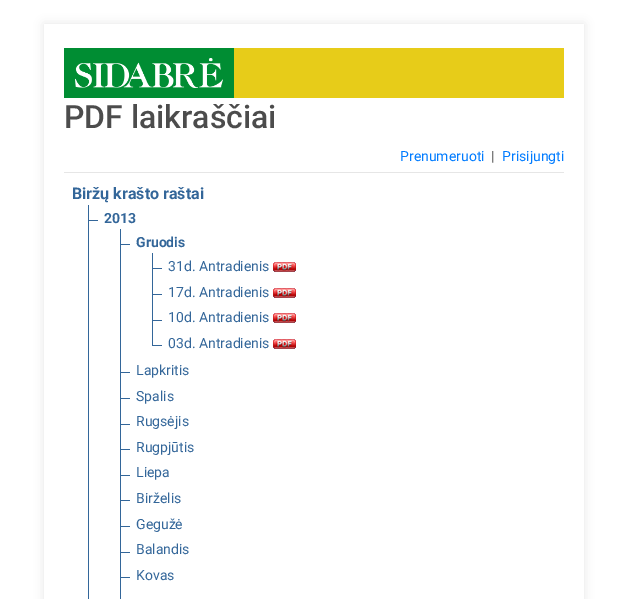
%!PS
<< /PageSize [628 599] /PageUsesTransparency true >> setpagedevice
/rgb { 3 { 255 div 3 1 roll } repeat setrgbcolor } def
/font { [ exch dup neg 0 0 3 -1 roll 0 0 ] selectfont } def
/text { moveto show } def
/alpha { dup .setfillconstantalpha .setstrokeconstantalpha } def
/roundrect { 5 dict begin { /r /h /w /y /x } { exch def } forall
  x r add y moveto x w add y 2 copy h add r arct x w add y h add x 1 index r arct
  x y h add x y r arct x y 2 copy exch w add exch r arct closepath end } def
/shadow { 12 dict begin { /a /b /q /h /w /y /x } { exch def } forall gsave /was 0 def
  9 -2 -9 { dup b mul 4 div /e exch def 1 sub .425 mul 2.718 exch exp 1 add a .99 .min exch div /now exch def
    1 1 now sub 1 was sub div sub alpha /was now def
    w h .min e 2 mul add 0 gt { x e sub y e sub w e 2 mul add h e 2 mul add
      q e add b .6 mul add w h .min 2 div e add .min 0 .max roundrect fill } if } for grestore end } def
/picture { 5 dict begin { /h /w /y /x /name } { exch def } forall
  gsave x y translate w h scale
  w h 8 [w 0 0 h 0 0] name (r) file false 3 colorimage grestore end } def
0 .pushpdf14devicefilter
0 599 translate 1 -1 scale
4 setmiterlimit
255 255 255 rgb
0 0 628 599 rectfill
gsave
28 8 moveto 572 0 rlineto 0 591 rlineto -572 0 rlineto closepath 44 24 moveto 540 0 rlineto 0 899 rlineto -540 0 rlineto closepath eoclip newpath
0 0 0 rgb
44 24 540 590 0 5 0.1 shadow
grestore
231 204 25 rgb
234 48 330 50 rectfill
0 141 51 rgb
64 48 170 50 rectfill
(img_01.rgb) 75 58 148 30 picture
230 230 230 rgb
64 172 500 1 rectfill
51 102 153 rgb
88 205 1 394 rectfill
88 220 10 1 rectfill
120 229 1 370 rectfill
120 244 10 1 rectfill
152 253 1 92 rectfill
152 268 10 1 rectfill
(img_02.rgb) 273 262 23 10 picture
152 294 10 1 rectfill
(img_02.rgb) 273 288 23 10 picture
152 320 10 1 rectfill
(img_02.rgb) 273 313 23 10 picture
152 345 10 1 rectfill
(img_02.rgb) 273 339 23 10 picture
120 372 10 1 rectfill
120 398 10 1 rectfill
120 424 10 1 rectfill
120 449 10 1 rectfill
120 475 10 1 rectfill
120 500 10 1 rectfill
120 526 10 1 rectfill
120 552 10 1 rectfill
120 577 10 1 rectfill
/Roboto-Medium 32 font
76 76 76 rgb
(PDF laikraščiai) 64 128 text
/Roboto-Regular 14 font
0 123 255 rgb
(Prenumeruoti) 400 161 text
76 76 76 rgb
(|) 491 161 text
0 123 255 rgb
(Prisijungti) 502 161 text
/Roboto-Bold 16 font
51 102 153 rgb
(Biržų krašto raštai) 72 199 text
/Roboto-Bold 14 font
(2013) 104 223 text
(Gruodis) 136 247 text
/Roboto-Regular 14 font
(31d. Antradienis) 168 271 text
(17d. Antradienis) 168 297 text
(10d. Antradienis) 168 322 text
(03d. Antradienis) 168 348 text
(Lapkritis) 136 375 text
(Spalis) 136 401 text
(Rugsėjis) 136 426 text
(Rugpjūtis) 136 452 text
(Liepa) 136 477 text
(Birželis) 136 503 text
(Gegužė) 136 529 text
(Balandis) 136 554 text
(Kovas) 136 580 text
.poppdf14devicefilter showpage
